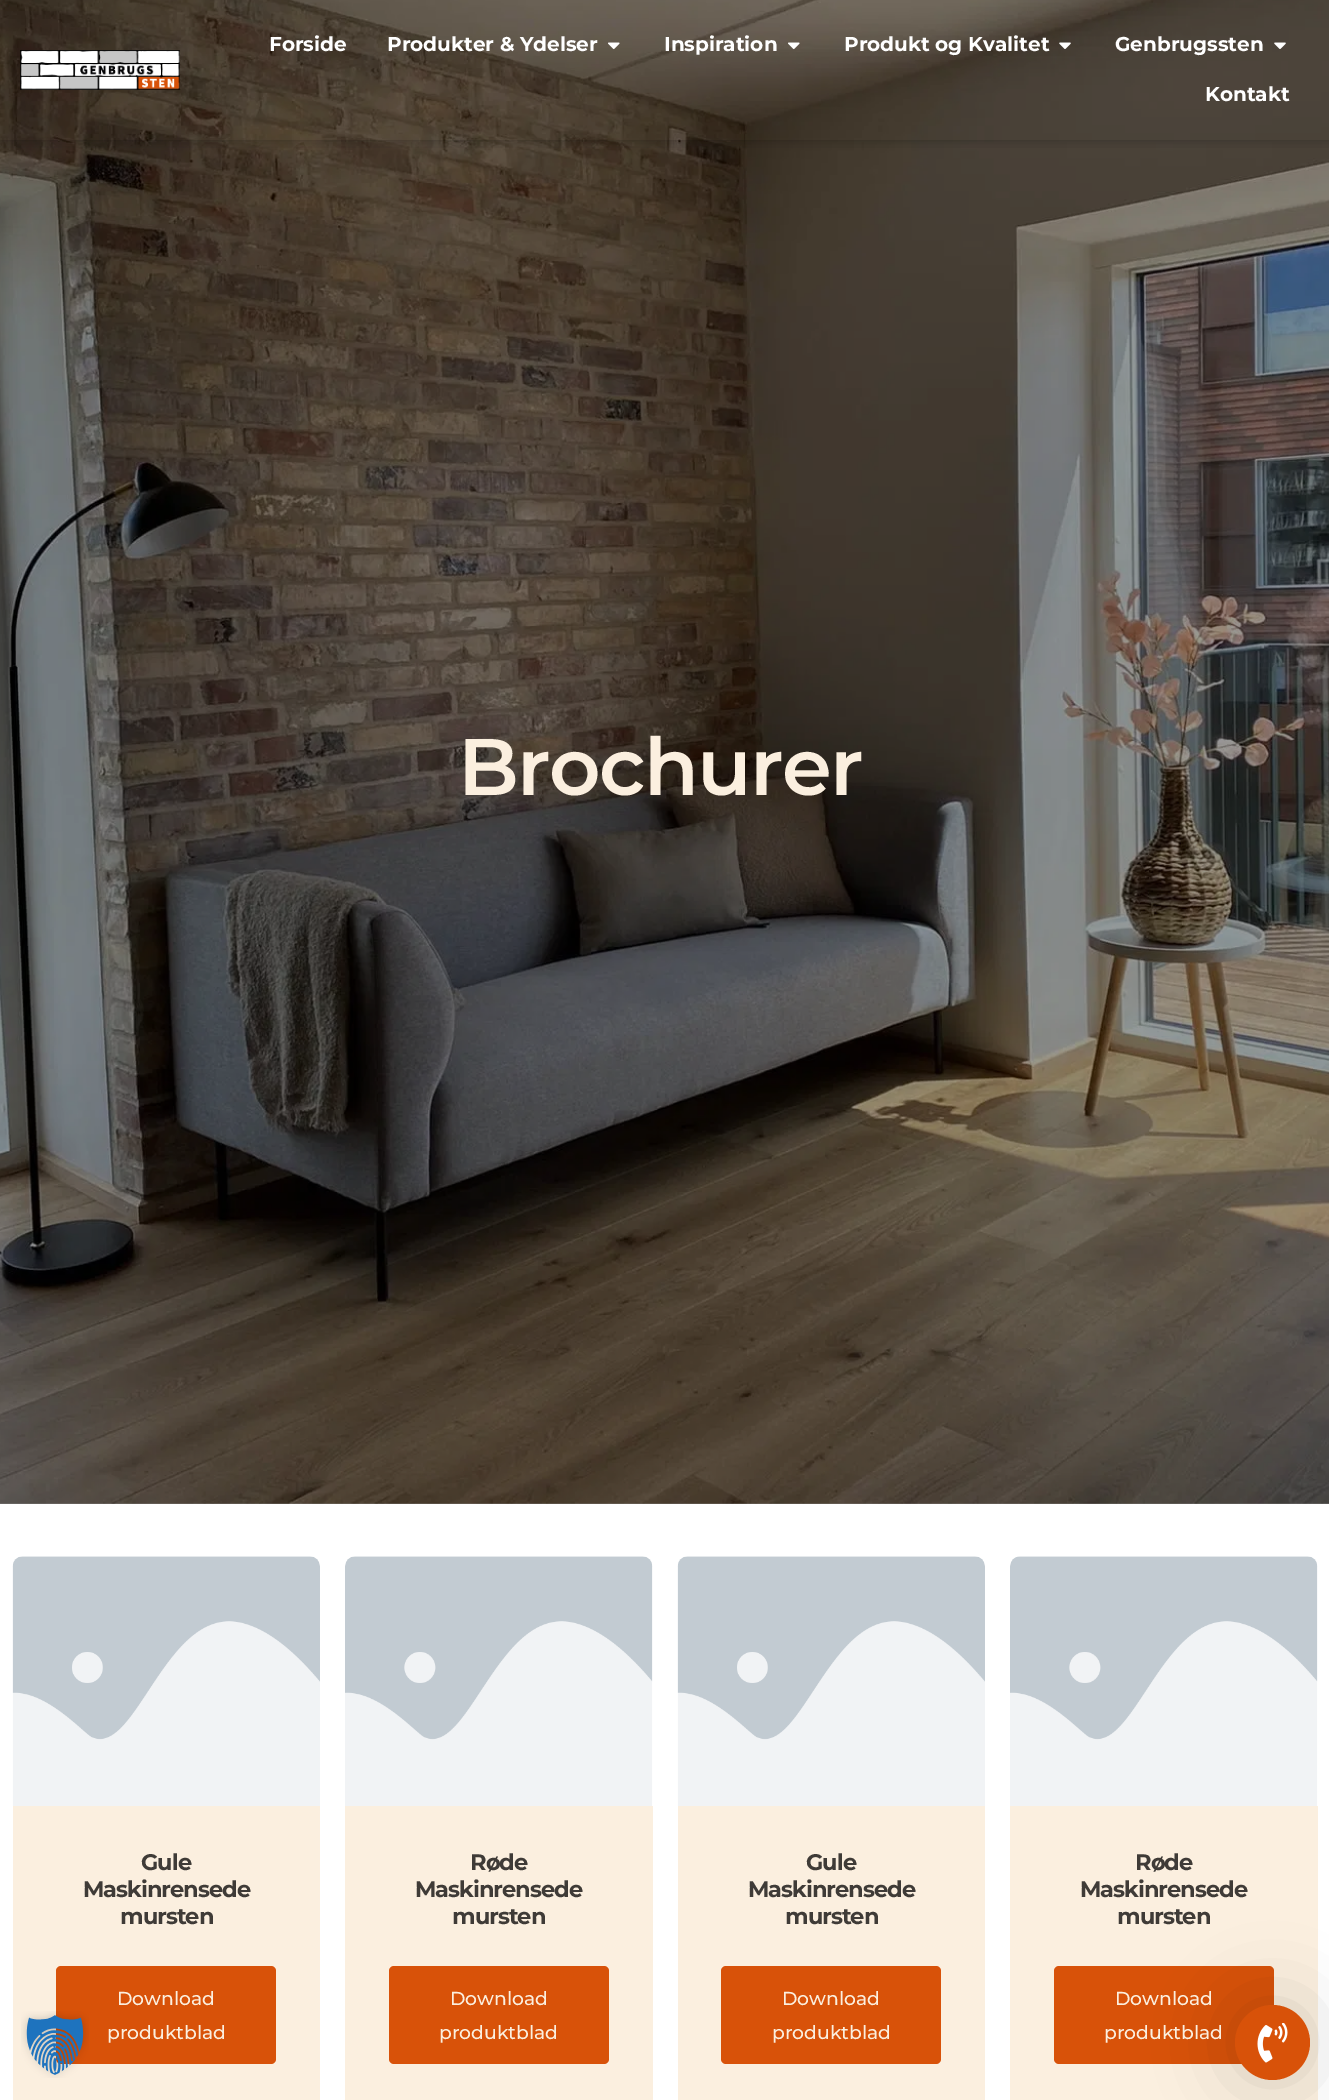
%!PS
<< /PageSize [1329 2100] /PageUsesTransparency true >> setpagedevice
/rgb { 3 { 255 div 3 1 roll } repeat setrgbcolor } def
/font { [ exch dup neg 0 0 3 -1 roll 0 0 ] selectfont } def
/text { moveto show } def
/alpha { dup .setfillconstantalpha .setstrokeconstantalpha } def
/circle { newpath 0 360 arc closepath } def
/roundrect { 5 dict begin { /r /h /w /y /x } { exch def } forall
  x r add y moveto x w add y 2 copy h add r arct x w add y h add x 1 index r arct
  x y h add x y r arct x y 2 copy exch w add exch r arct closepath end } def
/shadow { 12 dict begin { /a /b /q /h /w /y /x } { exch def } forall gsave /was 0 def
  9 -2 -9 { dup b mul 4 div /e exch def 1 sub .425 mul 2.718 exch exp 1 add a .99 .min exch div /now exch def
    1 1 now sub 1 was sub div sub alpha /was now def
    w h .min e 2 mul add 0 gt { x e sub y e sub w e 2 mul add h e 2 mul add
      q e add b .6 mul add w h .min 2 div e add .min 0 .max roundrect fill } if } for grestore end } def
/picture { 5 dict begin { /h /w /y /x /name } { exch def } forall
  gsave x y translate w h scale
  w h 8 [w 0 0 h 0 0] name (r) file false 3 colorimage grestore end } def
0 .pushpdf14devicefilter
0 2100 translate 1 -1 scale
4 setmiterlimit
255 255 255 rgb
0 0 1329 2100 rectfill
(img_06.rgb) 0 0 1329 1504 picture
gsave
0 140 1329 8 rectclip
0 0 0 rgb
0 0 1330 140 0 6 0.25 shadow
grestore
(img_01.rgb) 20 50 160 40 picture
(img_02.rgb) 608 42 12 8 picture
(img_03.rgb) 788 42 12 8 picture
(img_04.rgb) 1059 42 12 7 picture
(img_05.rgb) 1274 42 12 7 picture
(img_07.rgb) 12 1556 308 250 picture
251 239 223 rgb
13 1806 moveto 307 0 rlineto 0 292 rlineto 0 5.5 -4.5 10 -10 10 rcurveto -287 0 rlineto -5.5 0 -10 -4.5 -10 -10 rcurveto closepath fill
216 82 9 rgb
56 1966 220 98 5 roundrect fill
(img_08.rgb) 345 1556 308 250 picture
251 239 223 rgb
345 1806 moveto 308 0 rlineto 0 292 rlineto 0 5.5 -4.5 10 -10 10 rcurveto -288 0 rlineto -5.5 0 -10 -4.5 -10 -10 rcurveto closepath fill
216 82 9 rgb
389 1966 220 98 5 roundrect fill
(img_09.rgb) 677 1556 308 250 picture
251 239 223 rgb
678 1806 moveto 307 0 rlineto 0 292 rlineto 0 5.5 -4.5 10 -10 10 rcurveto -287 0 rlineto -5.5 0 -10 -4.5 -10 -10 rcurveto closepath fill
216 82 9 rgb
721 1966 220 98 5 roundrect fill
(img_10.rgb) 1010 1556 308 250 picture
251 239 223 rgb
1010 1806 moveto 308 0 rlineto 0 292 rlineto 0 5.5 -4.5 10 -10 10 rcurveto -288 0 rlineto -5.5 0 -10 -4.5 -10 -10 rcurveto closepath fill
216 82 9 rgb
1054 1966 220 98 5 roundrect fill
(img_11.rgb) 21 2011 68 67 picture
0 0 0 rgb
1235 2005 75 75 37.5 37.5 0.15 shadow
216 82 9 rgb
1272.5 2042.5 37.5 circle fill
(img_12.rgb) 1257 2023 31 40 picture
/Montserrat-Bold 20 font
255 255 255 rgb
(Forside) 269 51 text
(Produkter & Ydelser) 387 51 text
(Inspiration) 664 51 text
(Produkt og Kvalitet) 844 51 text
(Genbrugssten) 1115 51 text
(Kontakt) 1205 101 text
/Montserrat-SemiBold 80 font
251 239 223 rgb
458 795 moveto -1.6 0 (Brochurer) ashow
/Montserrat-Bold 22.5 font
63 59 55 rgb
141 1870 moveto -1 0 (Gule) ashow
83 1897 moveto -1 0 (Maskinrensede) ashow
120 1924 moveto -1 0 (mursten) ashow
/Montserrat-Medium 18.75 font
251 239 223 rgb
(Download) 117 2005 text
(produktblad) 107 2039 text
/Montserrat-Bold 22.5 font
63 59 55 rgb
470 1870 moveto -1 0 (Røde) ashow
415 1897 moveto -1 0 (Maskinrensede) ashow
452 1924 moveto -1 0 (mursten) ashow
/Montserrat-Medium 18.75 font
251 239 223 rgb
(Download) 450 2005 text
(produktblad) 439 2039 text
/Montserrat-Bold 22.5 font
63 59 55 rgb
806 1870 moveto -1 0 (Gule) ashow
748 1897 moveto -1 0 (Maskinrensede) ashow
785 1924 moveto -1 0 (mursten) ashow
/Montserrat-Medium 18.75 font
251 239 223 rgb
(Download) 782 2005 text
(produktblad) 772 2039 text
/Montserrat-Bold 22.5 font
63 59 55 rgb
1135 1870 moveto -1 0 (Røde) ashow
1080 1897 moveto -1 0 (Maskinrensede) ashow
1117 1924 moveto -1 0 (mursten) ashow
/Montserrat-Medium 18.75 font
251 239 223 rgb
(Download) 1115 2005 text
(produktblad) 1104 2039 text
.poppdf14devicefilter showpage
